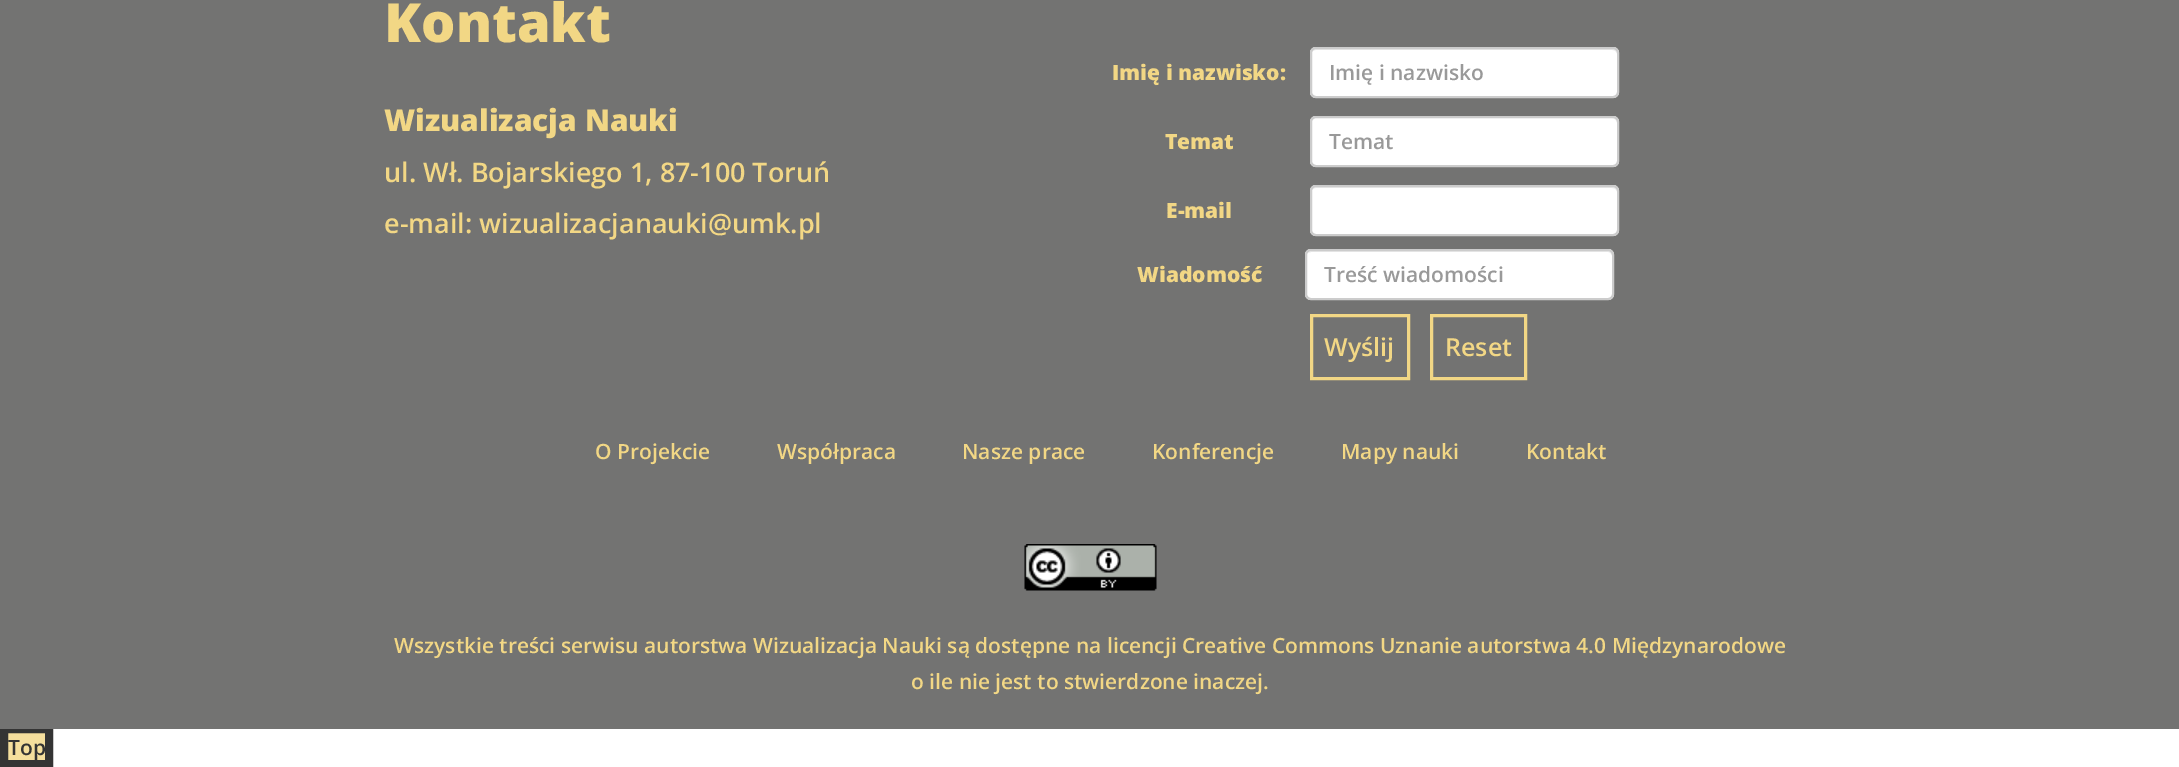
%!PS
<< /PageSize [2179 767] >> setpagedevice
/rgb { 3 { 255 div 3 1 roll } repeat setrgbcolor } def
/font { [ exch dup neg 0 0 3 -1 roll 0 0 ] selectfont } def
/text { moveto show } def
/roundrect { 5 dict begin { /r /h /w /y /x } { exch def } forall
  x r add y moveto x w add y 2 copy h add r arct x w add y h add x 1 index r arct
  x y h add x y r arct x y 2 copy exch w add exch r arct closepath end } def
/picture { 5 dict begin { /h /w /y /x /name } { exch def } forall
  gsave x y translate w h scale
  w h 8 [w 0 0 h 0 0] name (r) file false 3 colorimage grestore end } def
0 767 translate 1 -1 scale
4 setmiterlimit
255 255 255 rgb
0 0 2179 767 rectfill
245 223 157 rgb
4 729 moveto 45 0 rlineto 0 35 rlineto -45 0 rlineto closepath gsave fill grestore
52 52 52 rgb
8 setlinewidth
stroke
115 115 114 rgb
0 0 2179 729 rectfill
255 255 255 rgb
1310 47 309 51 6 roundrect fill
236 236 236 rgb
1316 50 moveto 296 0 rlineto 3 0 5 2 5 4 rcurveto 0 -3 -2 -6 -5 -6 rcurveto -296 0 rlineto -3 0 -5 3 -5 6 rcurveto 0 -2 2 -4 5 -4 rcurveto closepath fill
204 204 204 rgb
2 setlinewidth
1311 48 307 49 5 roundrect stroke
255 255 255 rgb
1310 116 309 51 6 roundrect fill
236 236 236 rgb
1316 118 moveto 296 0 rlineto 3 0 5 3 5 5 rcurveto 0 -3 -2 -6 -5 -6 rcurveto -296 0 rlineto -3 0 -5 3 -5 6 rcurveto 0 -2 2 -5 5 -5 rcurveto closepath fill
204 204 204 rgb
1311 117 307 49 5 roundrect stroke
255 255 255 rgb
1310 185 309 51 6 roundrect fill
236 236 236 rgb
1316 188 moveto 296 0 rlineto 3 0 5 2 5 4 rcurveto 0 -3 -2 -6 -5 -6 rcurveto -296 0 rlineto -3 0 -5 3 -5 6 rcurveto 0 -2 2 -4 5 -4 rcurveto closepath fill
204 204 204 rgb
1311 186 307 49 5 roundrect stroke
255 255 255 rgb
1305 249 309 51 6 roundrect fill
236 236 236 rgb
1311 252 moveto 297 0 rlineto 2 0 4 2 4 4 rcurveto 0 41 rlineto 1 -1 1 -2 1 -3 rcurveto 0 -38 rlineto 0 -3 -2 -5 -5 -5 rcurveto -296 0 rlineto -2 0 -3 1 -4 2 rcurveto closepath fill
204 204 204 rgb
1306 250 307 49 5 roundrect stroke
242 215 133 rgb
3 setlinewidth
1311.5 315.5 97 63 rectstroke
1431.5 315.5 94 63 rectstroke
(img_01.rgb) 1024 544 133 47 picture
/OpenSans-ExtraBold 54 font
(Kontakt) 384 42 text
/OpenSans-ExtraBold 30 font
(Wizualizacja Nauki) 384 131 text
/OpenSans-SemiBold 27 font
(ul. Wł. Bojarskiego 1, 87-100 Toruń) 384 182 text
(e-mail: wizualizacjanauki@umk.pl) 384 233 text
/OpenSans-ExtraBold 21 font
(Imię i nazwisko:) 1112 80 text
/OpenSans-SemiBold 21 font
153 153 153 rgb
(Imię i nazwisko) 1329 80 text
/OpenSans-ExtraBold 21 font
242 215 133 rgb
(Temat) 1165 149 text
/OpenSans-SemiBold 21 font
153 153 153 rgb
(Temat) 1329 149 text
/OpenSans-ExtraBold 21 font
242 215 133 rgb
(E-mail) 1166 218 text
(Wiadomość) 1137 282 text
/OpenSans-SemiBold 21 font
153 153 153 rgb
(Treść wiadomości) 1324 282 text
/OpenSans-SemiBold 25 font
242 215 133 rgb
(Wyślij) 1324 356 text
(Reset) 1445 356 text
/OpenSans-SemiBold 21 font
(O Projekcie) 595 459 text
(Współpraca) 777 459 text
(Nasze prace) 962 459 text
(Konferencje) 1152 459 text
(Mapy nauki) 1341 459 text
(Kontakt) 1526 459 text
(Wszystkie treści serwisu autorstwa Wizualizacja Nauki są dostępne na licencji Creative Commons Uznanie autorstwa 4.0 Międzynarodowe) 394 653 text
(o ile nie jest to stwierdzone inaczej.) 911 689 text
52 52 52 rgb
(Top) 8 755 text
showpage
